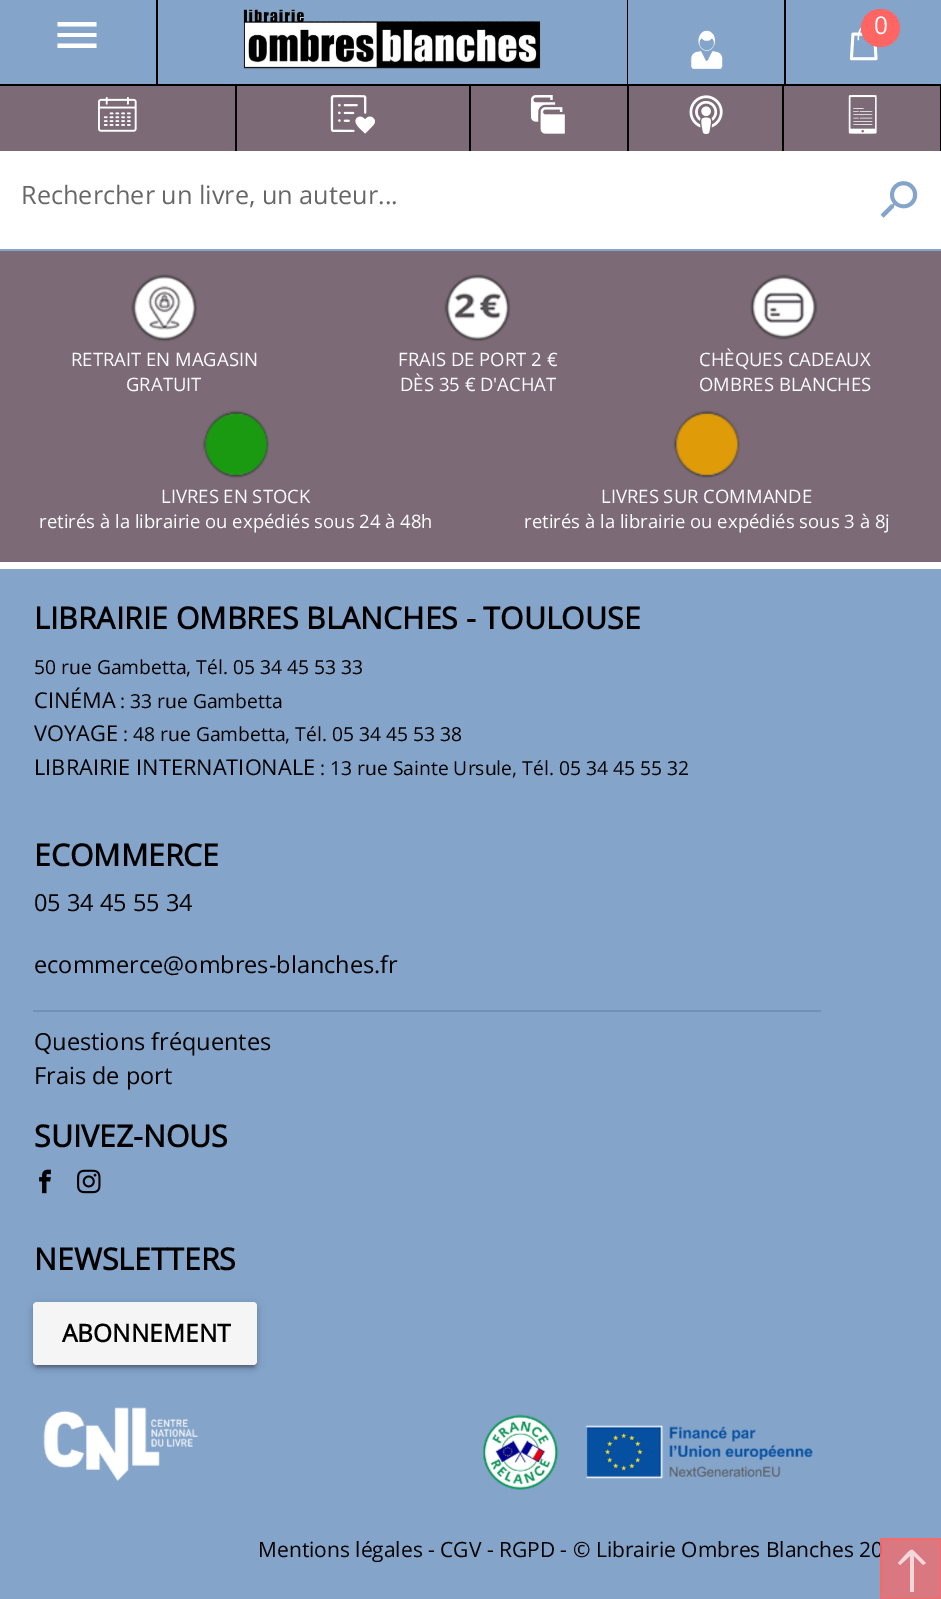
%!PS
<< /PageSize [941 1599] /PageUsesTransparency true >> setpagedevice
/rgb { 3 { 255 div 3 1 roll } repeat setrgbcolor } def
/font { [ exch dup neg 0 0 3 -1 roll 0 0 ] selectfont } def
/text { moveto show } def
/alpha { dup .setfillconstantalpha .setstrokeconstantalpha } def
/roundrect { 5 dict begin { /r /h /w /y /x } { exch def } forall
  x r add y moveto x w add y 2 copy h add r arct x w add y h add x 1 index r arct
  x y h add x y r arct x y 2 copy exch w add exch r arct closepath end } def
/shadow { 12 dict begin { /a /b /q /h /w /y /x } { exch def } forall gsave /was 0 def
  9 -2 -9 { dup b mul 4 div /e exch def 1 sub .425 mul 2.718 exch exp 1 add a .99 .min exch div /now exch def
    1 1 now sub 1 was sub div sub alpha /was now def
    w h .min e 2 mul add 0 gt { x e sub y e sub w e 2 mul add h e 2 mul add
      q e add b .6 mul add w h .min 2 div e add .min 0 .max roundrect fill } if } for grestore end } def
/picture { 5 dict begin { /h /w /y /x /name } { exch def } forall
  gsave x y translate w h scale
  w h 8 [w 0 0 h 0 0] name (r) file false 3 colorimage grestore end } def
0 .pushpdf14devicefilter
0 1599 translate 1 -1 scale
4 setmiterlimit
132 164 202 rgb
0 0 941 1599 rectfill
124 106 119 rgb
0 86 940 65 rectfill
0 0 0 rgb
156 0 2 84 rectfill
255 255 255 rgb
57.5 22 moveto 39 0 rlineto 0 4.5 rlineto -39 0 rlineto closepath 57.5 37 moveto 0 -4 rlineto 39 0 rlineto 0 4 rlineto closepath 57.5 48 moveto 0 -4.5 rlineto 39 0 rlineto 0 4.5 rlineto closepath fill
0 0 0 rgb
627 0 1 84 rectfill
(img_01.rgb) 243 9 298 60 picture
784 0 2 84 rectfill
(img_02.rgb) 849 27 29 34 picture
255 101 98 rgb
861 9 39 38 19 roundrect fill
(img_03.rgb) 691 30 32 39 picture
0 0 0 rgb
0 84 236 2 rectfill
235 84 2 67 rectfill
(img_04.rgb) 98 97 39 35 picture
236 84 392 2 rectfill
469 84 2 67 rectfill
(img_05.rgb) 330 95 45 39 picture
627 84 2 67 rectfill
(img_06.rgb) 530 95 35 39 picture
628 84 313 2 rectfill
782 84 2 67 rectfill
(img_07.rgb) 689 95 34 39 picture
940 84 1 67 rectfill
(img_08.rgb) 848 95 29 39 picture
255 255 255 rgb
0 151 941 98 rectfill
(img_09.rgb) 880 181 38 37 picture
124 106 119 rgb
0 251 941 311 rectfill
255 255 255 rgb
0 562 941 7 rectfill
(img_10.rgb) 131 274 66 68 picture
(img_11.rgb) 444 274 67 68 picture
(img_12.rgb) 750 274 68 66 picture
(img_13.rgb) 202 410 67 68 picture
(img_14.rgb) 673 410 67 68 picture
116 144 178 rgb
33 1010 788 2 rectfill
(img_15.rgb) 39 1169 12 25 picture
(img_16.rgb) 77 1169 24 25 picture
0 0 0 rgb
33 1304 224 63 4 4.5 0.12 shadow
33 1306 224 63 4 2 0.14 shadow
37 1311 217 56 0 1 0.2 shadow
245 245 245 rgb
33 1302 224 63 4 roundrect fill
(img_17.rgb) 43 1407 156 74 picture
(img_18.rgb) 483 1414 330 76 picture
/OpenSans-Regular 24.5 font
255 255 255 rgb
(0) 874 34 text
/OpenSans-Regular 25.25 font
102 102 102 rgb
(Rechercher un livre, un auteur...) 21 204 text
/OpenSans-Regular 18.5 font
255 255 255 rgb
(RETRAIT EN MAGASIN) 71 366 text
(GRATUIT) 126 391 text
(FRAIS DE PORT 2 €) 398 366 text
(DÈS 35 € D'ACHAT) 400 391 text
(CHÈQUES CADEAUX) 699 366 text
(OMBRES BLANCHES) 699 391 text
(LIVRES EN STOCK) 161 503 text
(retirés à la librairie ou expédiés sous 24 à 48h) 39 528 text
(LIVRES SUR COMMANDE) 601 503 text
(retirés à la librairie ou expédiés sous 3 à 8j) 524 528 text
/OpenSans-Bold 30.25 font
0 0 0 rgb
(LIBRAIRIE OMBRES BLANCHES - TOULOUSE) 34 629 text
/OpenSans-Regular 19.3 font
(50 rue Gambetta, Tél. 05 34 45 53 33) 34 674 text
/OpenSans-Regular 21.8 font
(CINÉMA) 34 708 text
/OpenSans-Regular 19.3 font
(: 33 rue Gambetta) 120 708 text
/OpenSans-Regular 21.8 font
(VOYAGE) 34 741 text
/OpenSans-Regular 19.3 font
(: 48 rue Gambetta, Tél. 05 34 45 53 38) 123 741 text
/OpenSans-Regular 21.8 font
(LIBRAIRIE INTERNATIONALE) 34 775 text
/OpenSans-Regular 19.3 font
(: 13 rue Sainte Ursule, Tél. 05 34 45 55 32) 320 775 text
/OpenSans-Bold 30.25 font
(ECOMMERCE) 34 866 text
/OpenSans-Regular 23.5 font
(05 34 45 55 34) 34 911 text
(ecommerce@ombres-blanches.fr) 34 973 text
(Questions fréquentes) 34 1050 text
(Frais de port) 34 1084 text
/OpenSans-Bold 30.25 font
(SUIVEZ-NOUS) 34 1147 text
(NEWSLETTERS) 34 1270 text
/OpenSans-Bold 24.5 font
(ABONNEMENT) 62 1342 text
/OpenSans-Regular 21 font
(Mentions légales - CGV - RGPD - © Librairie Ombres Blanches 20) 258 1557 text
0.7 alpha
255 101 98 rgb
880 1538 61 61 rectfill
2 setlinewidth
881 1539 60 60 rectstroke
255 255 255 rgb
926 1563 moveto -11 -11 rlineto -3 -3 -3 -3 -7 0 rcurveto -10 11 rlineto 2 2 rlineto 10 -9 rlineto 0 36 rlineto 4 0 rlineto 0 -36 rlineto 9 9 rlineto closepath fill
.poppdf14devicefilter showpage
